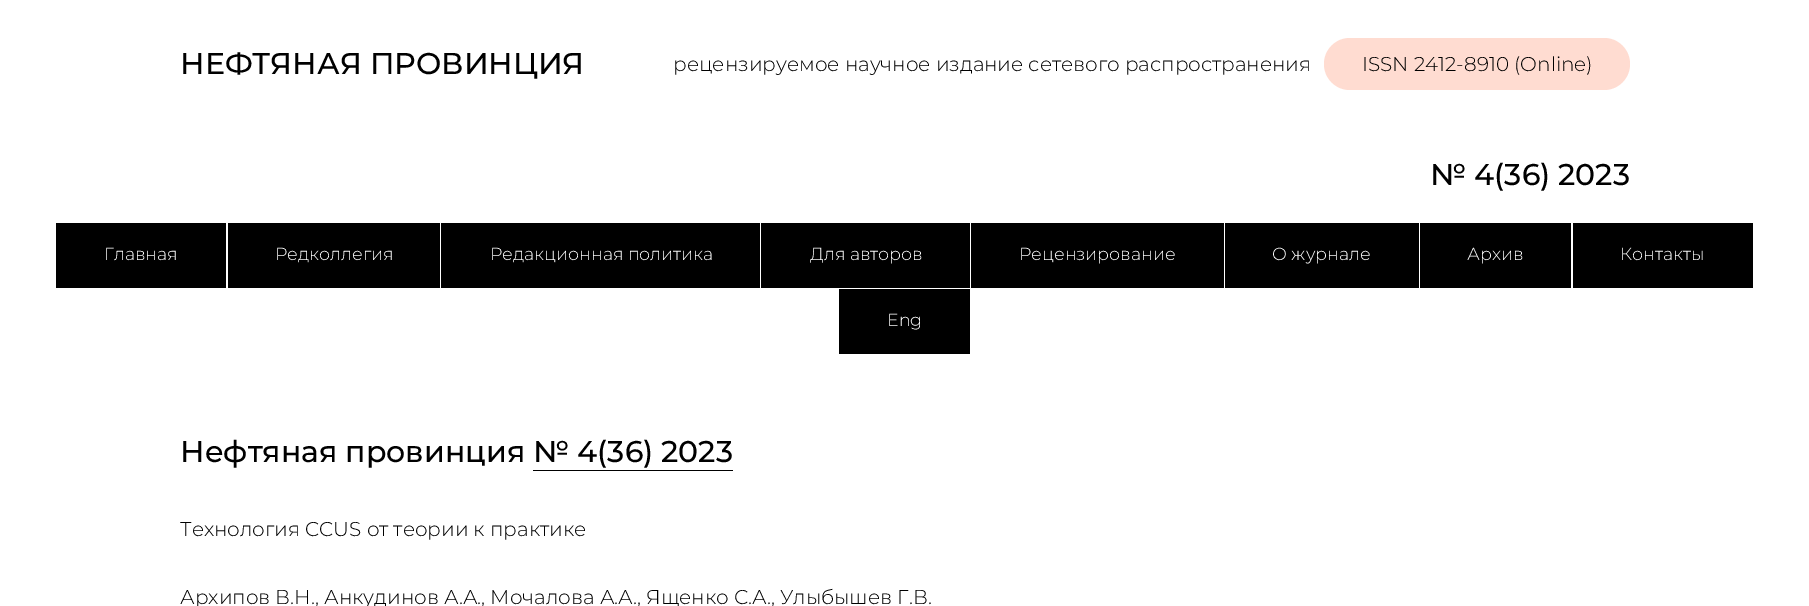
%!PS
<< /PageSize [1809 606] >> setpagedevice
/rgb { 3 { 255 div 3 1 roll } repeat setrgbcolor } def
/font { [ exch dup neg 0 0 3 -1 roll 0 0 ] selectfont } def
/text { moveto show } def
/roundrect { 5 dict begin { /r /h /w /y /x } { exch def } forall
  x r add y moveto x w add y 2 copy h add r arct x w add y h add x 1 index r arct
  x y h add x y r arct x y 2 copy exch w add exch r arct closepath end } def
0 606 translate 1 -1 scale
4 setmiterlimit
255 255 255 rgb
0 0 1809 606 rectfill
255 220 209 rgb
1324 38 306 52 26 roundrect fill
0 0 0 rgb
56 223 170 65 rectfill
228 223 212 65 rectfill
441 223 319 65 rectfill
761 223 209 65 rectfill
971 223 253 65 rectfill
1225 223 194 65 rectfill
1420 223 151 65 rectfill
1573 223 180 65 rectfill
839 289 131 65 rectfill
533 470 200 1 rectfill
/Montserrat-Medium 30 font
(НЕФТЯНАЯ ПРОВИНЦИЯ) 180 74 text
/Montserrat-Light 20 font
(рецензируемое научное издание сетевого распространения) 673 71 text
(ISSN 2412-8910 \(Online\)) 1362 71 text
/Montserrat-Medium 30 font
(№ 4\(36\) 2023) 1430 185 text
/Montserrat-Light 17.5 font
255 255 255 rgb
(Главная) 104 260 text
(Редколлегия) 275 260 text
(Редакционная политика) 490 260 text
(Для авторов) 810 260 text
(Рецензирование) 1019 260 text
(О журнале) 1272 260 text
(Архив) 1467 260 text
(Контакты) 1620 260 text
(Eng) 887 326 text
/Montserrat-Medium 30 font
0 0 0 rgb
(Нефтяная провинция № 4\(36\) 2023) 180 462 text
/Montserrat-Light 20 font
(Технология CCUS от теории к практике) 180 536 text
(Архипов В.Н., Анкудинов А.А., Мочалова А.А., Ященко С.А., Улыбышев Г.В.) 180 604 text
showpage
